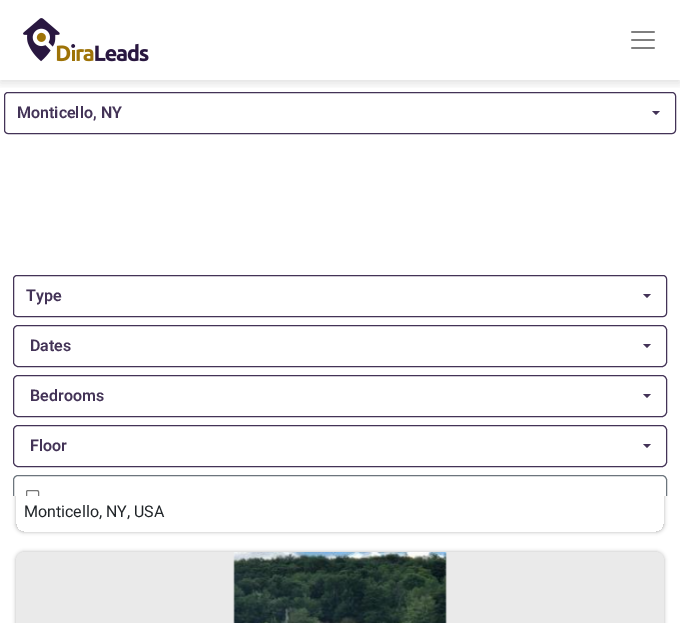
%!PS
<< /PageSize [680 623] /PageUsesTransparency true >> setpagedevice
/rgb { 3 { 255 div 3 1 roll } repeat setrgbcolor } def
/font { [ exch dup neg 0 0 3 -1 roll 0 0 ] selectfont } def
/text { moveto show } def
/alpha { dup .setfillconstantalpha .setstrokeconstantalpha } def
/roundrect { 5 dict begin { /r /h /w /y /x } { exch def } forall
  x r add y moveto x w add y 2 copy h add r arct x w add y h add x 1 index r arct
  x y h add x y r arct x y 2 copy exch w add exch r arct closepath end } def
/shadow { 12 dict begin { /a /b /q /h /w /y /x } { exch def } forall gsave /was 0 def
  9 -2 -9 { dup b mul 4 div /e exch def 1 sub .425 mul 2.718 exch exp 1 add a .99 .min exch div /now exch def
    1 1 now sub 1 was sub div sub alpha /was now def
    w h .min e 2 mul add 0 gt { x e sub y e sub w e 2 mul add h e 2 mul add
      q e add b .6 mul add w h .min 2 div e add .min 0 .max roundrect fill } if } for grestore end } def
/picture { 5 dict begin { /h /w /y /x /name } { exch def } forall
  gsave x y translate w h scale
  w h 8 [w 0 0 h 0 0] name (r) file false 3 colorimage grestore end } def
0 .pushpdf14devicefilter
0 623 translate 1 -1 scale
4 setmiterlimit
255 255 255 rgb
0 0 680 623 rectfill
67 51 87 rgb
4.5 92.5 671 41 3.5 roundrect stroke
gsave
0 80 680 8 rectclip
0 0 0 rgb
0 3 680 80 0 5 0.12 shadow
grestore
(img_01.rgb) 23 18 126 44 picture
(img_02.rgb) 631 31 24 18 picture
gsave
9 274 moveto 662 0 rlineto 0 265 rlineto -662 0 rlineto closepath 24 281 moveto 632 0 rlineto 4.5 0 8 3.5 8 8 rcurveto 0 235 rlineto 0 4.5 -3.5 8 -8 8 rcurveto -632 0 rlineto -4.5 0 -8 -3.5 -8 -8 rcurveto 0 -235 rlineto 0 -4.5 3.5 -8 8 -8 rcurveto closepath eoclip newpath
0 0 0 rgb
16 281 648 251 8 2 0.3 shadow
grestore
255 255 255 rgb
12 277 656 219 rectfill
67 51 87 rgb
652 111 moveto 8 0 rlineto -4 4 rlineto closepath fill
13.5 275.5 653 41 3.5 roundrect stroke
643 294 moveto 8 0 rlineto -4 4 rlineto closepath fill
13.5 325.5 653 41 4.5 roundrect stroke
643 344 moveto 8 0 rlineto -4 4 rlineto closepath fill
13.5 375.5 653 41 4.5 roundrect stroke
643 394 moveto 8 0 rlineto -4 4 rlineto closepath fill
13.5 425.5 653 41 4.5 roundrect stroke
643 444 moveto 8 0 rlineto -4 4 rlineto closepath fill
0 0 0 rgb
16 552 648 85 8 2 0.3 shadow
234 234 234 rgb
16 552 648 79 8 roundrect fill
(img_03.rgb) 233 552 214 71 picture
/Roboto-SemiBold 16 font
67 51 87 rgb
(Monticello, NY) 17 118 text
(Type) 26 301 text
(Dates) 30 351 text
(Bedrooms) 30 401 text
(Floor) 30 451 text
/Roboto-Regular 16 font
33 37 41 rgb
(Monticello, NY, USA) 24 517 text
gsave
0 80 680 416 rectclip
108 117 125 rgb
13.5 475.5 653 41 4.5 roundrect stroke
118 118 118 rgb
26.5 490.5 12 12 1.5 roundrect stroke
grestore
.poppdf14devicefilter showpage
